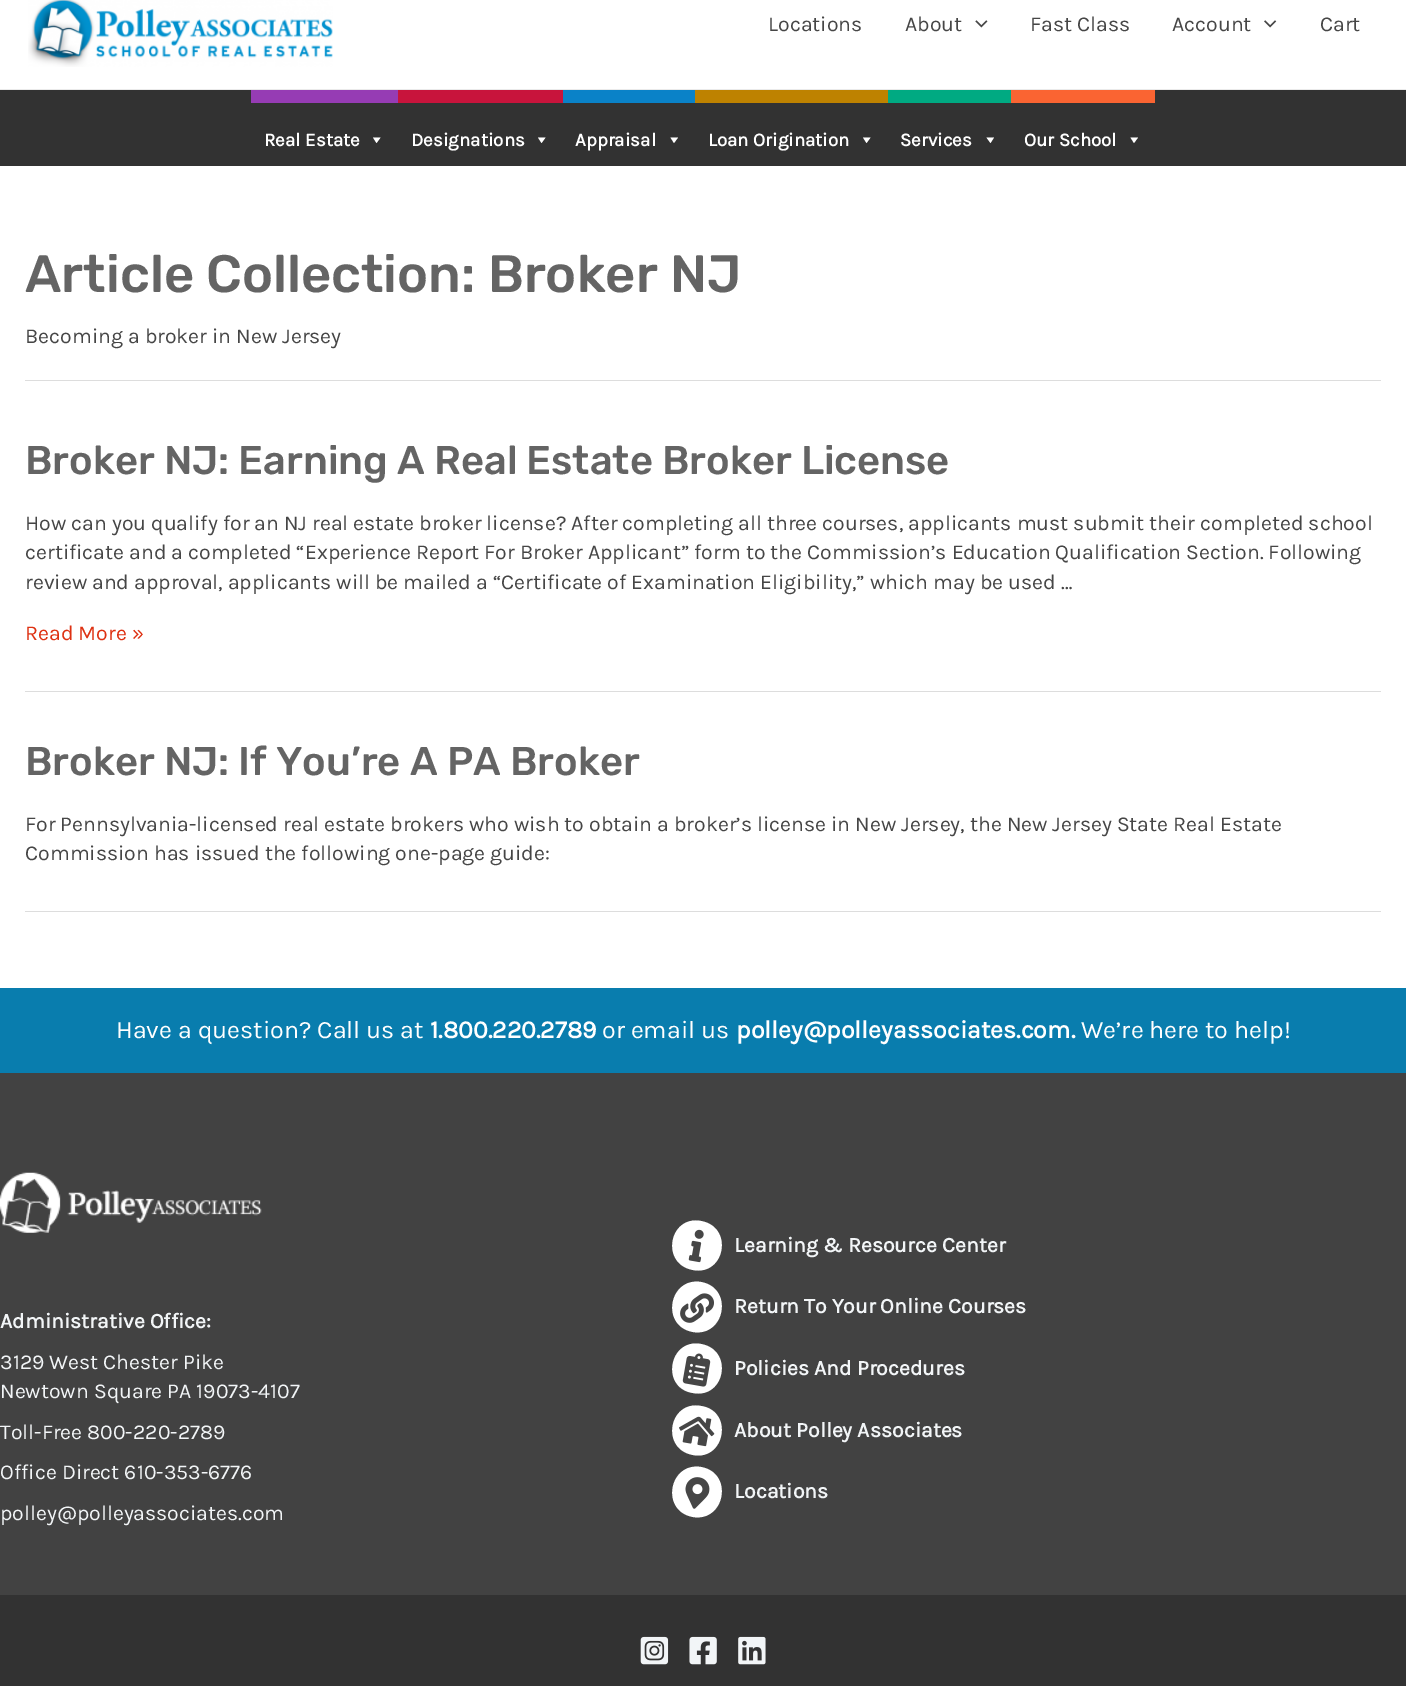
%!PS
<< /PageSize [1406 1686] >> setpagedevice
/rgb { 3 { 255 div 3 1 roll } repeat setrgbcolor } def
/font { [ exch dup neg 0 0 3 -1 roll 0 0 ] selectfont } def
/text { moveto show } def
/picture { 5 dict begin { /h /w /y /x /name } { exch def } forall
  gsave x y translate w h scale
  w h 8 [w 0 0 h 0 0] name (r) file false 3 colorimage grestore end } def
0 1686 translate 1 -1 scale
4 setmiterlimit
255 255 255 rgb
0 0 1406 1686 rectfill
234 234 234 rgb
0 89 1406 1 rectfill
(img_01.rgb) 28 0 305 67 picture
(img_02.rgb) 975 20 13 8 picture
(img_03.rgb) 1264 20 13 8 picture
50 50 50 rgb
0 90 1406 76 rectfill
150 60 180 rgb
251 90 147 13 rectfill
255 255 255 rgb
380.5 137.5 moveto -4 5.5 rlineto -3.5 -5.5 rlineto closepath fill
200 20 60 rgb
398 90 165 13 rectfill
255 255 255 rgb
545.5 137.5 moveto -4 5.5 rlineto -3.5 -5.5 rlineto closepath fill
10 130 200 rgb
563 90 132 13 rectfill
255 255 255 rgb
678 137.5 moveto -4 5.5 rlineto -3.5 -5.5 rlineto closepath fill
190 130 0 rgb
695 90 193 13 rectfill
255 255 255 rgb
870.5 137.5 moveto -4 5.5 rlineto -3.5 -5.5 rlineto closepath fill
0 170 130 rgb
888 90 123 13 rectfill
255 255 255 rgb
994 137.5 moveto -3.5 5.5 rlineto -4 -5.5 rlineto closepath fill
250 100 50 rgb
1011 90 144 13 rectfill
255 255 255 rgb
1138 137.5 moveto -4 5.5 rlineto -3.5 -5.5 rlineto closepath fill
221 221 221 rgb
25 380 1356 1 rectfill
25 691 1356 1 rectfill
25 911 1356 1 rectfill
9 125 174 rgb
0 988 1406 85 rectfill
66 66 66 rgb
0 1073 1406 522 rectfill
(img_04.rgb) 0 1172 262 61 picture
255 255 255 rgb
701 1221 moveto 33 6 24 55 -8 49 rcurveto -33 -6 -24 -55 8 -49 rcurveto closepath fill
(img_05.rgb) 688 1229 16 34 picture
701 1282 moveto 33 6 24 55 -8 50 rcurveto -33 -6 -24 -55 8 -50 rcurveto closepath fill
(img_06.rgb) 680 1293 34 30 picture
701 1344 moveto 33 6 24 55 -8 49 rcurveto -33 -5 -24 -55 8 -49 rcurveto closepath fill
(img_07.rgb) 682 1353 29 34 picture
701 1406 moveto 33 5 24 55 -8 49 rcurveto -33 -6 -24 -55 8 -49 rcurveto closepath fill
(img_08.rgb) 679 1416 36 31 picture
701 1467 moveto 33 6 24 55 -8 50 rcurveto -33 -6 -24 -55 8 -50 rcurveto closepath fill
(img_09.rgb) 685 1477 25 32 picture
50 50 50 rgb
0 1595 1406 91 rectfill
(img_10.rgb) 640 1636 29 29 picture
(img_11.rgb) 689 1636 28 29 picture
(img_12.rgb) 738 1636 28 29 picture
/Karla-Regular 21.25 font
70 70 70 rgb
(Locations) 768 31 text
(About) 905 31 text
(Fast Class) 1030 31 text
(Account) 1172 31 text
(Cart) 1320 31 text
/Karla-Bold 18.75 font
255 255 255 rgb
(Real Estate) 264 146 text
(Designations) 411 146 text
(Appraisal) 575 146 text
(Loan Origination) 708 146 text
(Services) 900 146 text
(Our School) 1024 146 text
/Rubik-Light 52.5 font
100 100 100 rgb
(Article Collection: Broker NJ) 25 292 text
/Karla-Regular 21.25 font
70 70 70 rgb
(Becoming a broker in New Jersey) 25 343 text
/Rubik-Light 40 font
100 100 100 rgb
(Broker NJ: Earning A Real Estate Broker License) 25 474 text
/Karla-Regular 21.25 font
70 70 70 rgb
(How can you qualify for an NJ real estate broker license? After completing all three courses, applicants must submit their completed school) 25 530 text
(certificate and a completed “Experience Report For Broker Applicant” form to the Commission’s Education Qualification Section. Following) 25 559 text
(review and approval, applicants will be mailed a “Certificate of Examination Eligibility,” which may be used …) 25 589 text
222 49 18 rgb
(Read More ») 25 640 text
/Rubik-Light 40 font
100 100 100 rgb
(Broker NJ: If You’re A PA Broker) 25 775 text
/Karla-Regular 21.25 font
70 70 70 rgb
(For Pennsylvania-licensed real estate brokers who wish to obtain a broker’s license in New Jersey, the New Jersey State Real Estate) 25 831 text
(Commission has issued the following one-page guide:) 25 860 text
/Karla-Regular 25 font
255 255 255 rgb
(Have a question? Call us at) 116 1038 text
/Karla-Bold 25 font
(1.800.220.2789) 430 1038 text
/Karla-Regular 25 font
(or email us) 602 1038 text
/Karla-Bold 25 font
(polley@polleyassociates.com.) 736 1038 text
/Karla-Regular 25 font
(We’re here to help!) 1081 1038 text
/Karla-Bold 21.25 font
242 245 247 rgb
(Administrative Office:) 0 1328 text
/Karla-Regular 21.25 font
(3129 West Chester Pike) 0 1369 text
(Newtown Square PA 19073-4107) 0 1398 text
(Toll-Free 800-220-2789) 0 1439 text
(Office Direct 610-353-6776) 0 1479 text
(polley@polleyassociates.com) 0 1520 text
/Karla-Bold 21.25 font
(Learning & Resource Center) 734 1252 text
(Return To Your Online Courses) 734 1313 text
(Policies And Procedures) 734 1375 text
(About Polley Associates) 734 1437 text
(Locations) 734 1498 text
showpage
